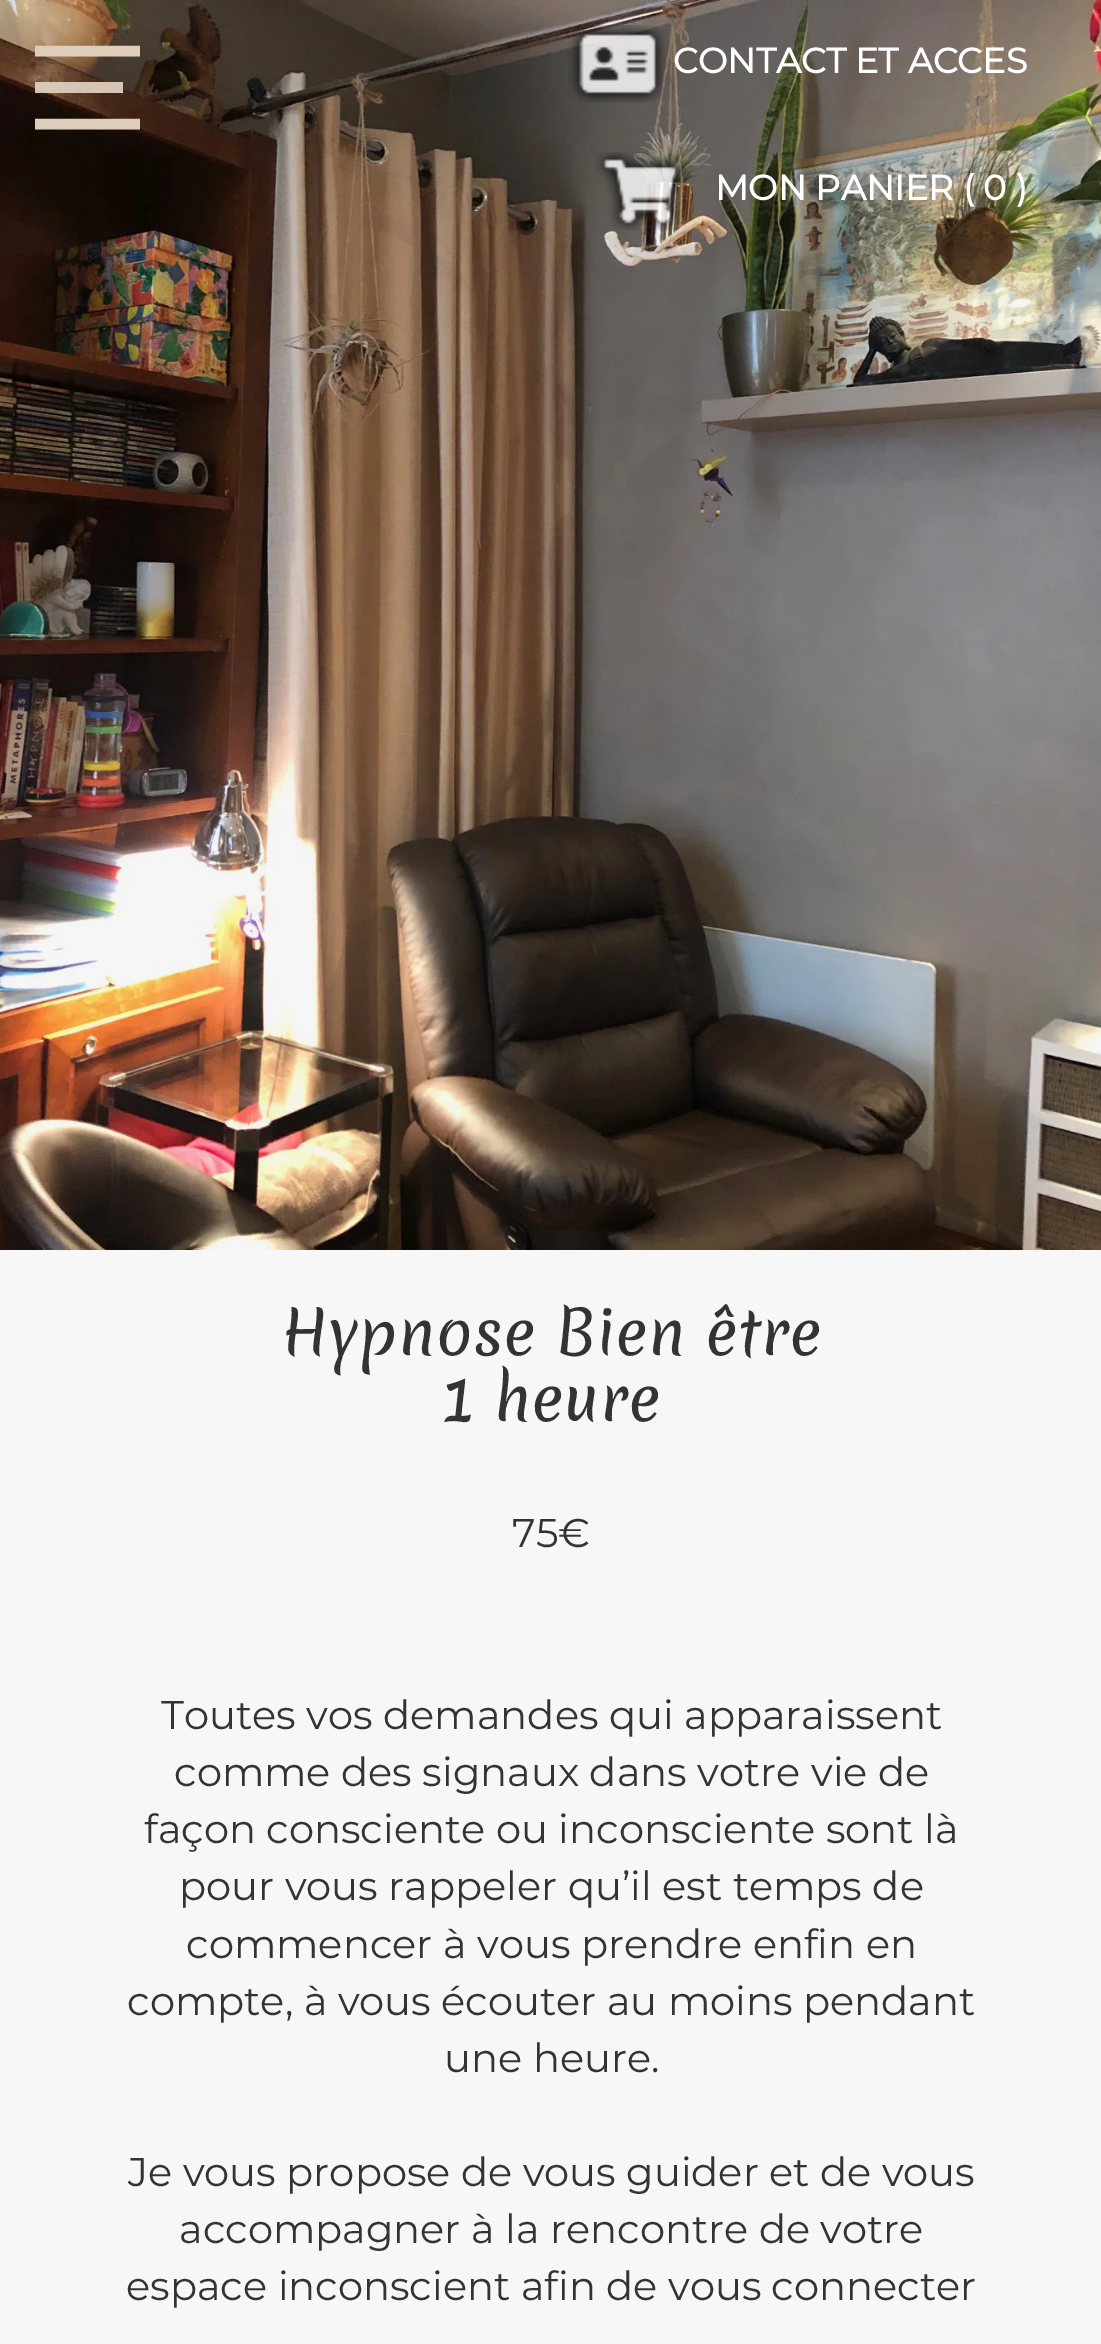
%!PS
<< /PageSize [1101 2344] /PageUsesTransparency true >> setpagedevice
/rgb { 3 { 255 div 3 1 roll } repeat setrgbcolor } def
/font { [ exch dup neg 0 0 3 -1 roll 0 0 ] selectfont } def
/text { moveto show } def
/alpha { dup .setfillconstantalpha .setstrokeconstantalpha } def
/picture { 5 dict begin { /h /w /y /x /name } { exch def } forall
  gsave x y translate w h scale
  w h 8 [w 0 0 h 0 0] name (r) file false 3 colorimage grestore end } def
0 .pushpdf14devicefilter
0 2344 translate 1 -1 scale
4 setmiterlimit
247 247 247 rgb
0 0 1101 2344 rectfill
(img_03.rgb) 0 0 1101 1250 picture
221 205 186 rgb
10.5 setlinewidth
35 51 moveto 105 0 rlineto stroke
0.95 alpha
35 82 88 11 rectfill
1 alpha
35 124 moveto 105 0 rlineto stroke
(img_01.rgb) 568 25 100 78 picture
(img_02.rgb) 595 152 91 78 picture
/Montserrat-Bold 35 font
255 255 255 rgb
(CONTACT ET ACCES) 673 73 text
(MON PANIER \( 0 \)) 715 200 text
/Merienda-Regular 60 font
51 51 51 rgb
(Hypnose Bien être) 281 1355 text
(1 heure) 442 1421 text
/Montserrat-Thin 40 font
(75€) 512 1547 text
(Toutes vos demandes qui apparaissent) 161 1729 text
(comme des signaux dans votre vie de) 174 1786 text
(façon consciente ou inconsciente sont là) 144 1843 text
(pour vous rappeler qu’il est temps de) 179 1900 text
(commencer à vous prendre enfin en) 186 1958 text
(compte, à vous écouter au moins pendant) 127 2015 text
(une heure.) 444 2072 text
(Je vous propose de vous guider et de vous) 128 2186 text
(accompagner à la rencontre de votre) 179 2243 text
(espace inconscient afin de vous connecter) 126 2300 text
.poppdf14devicefilter showpage
